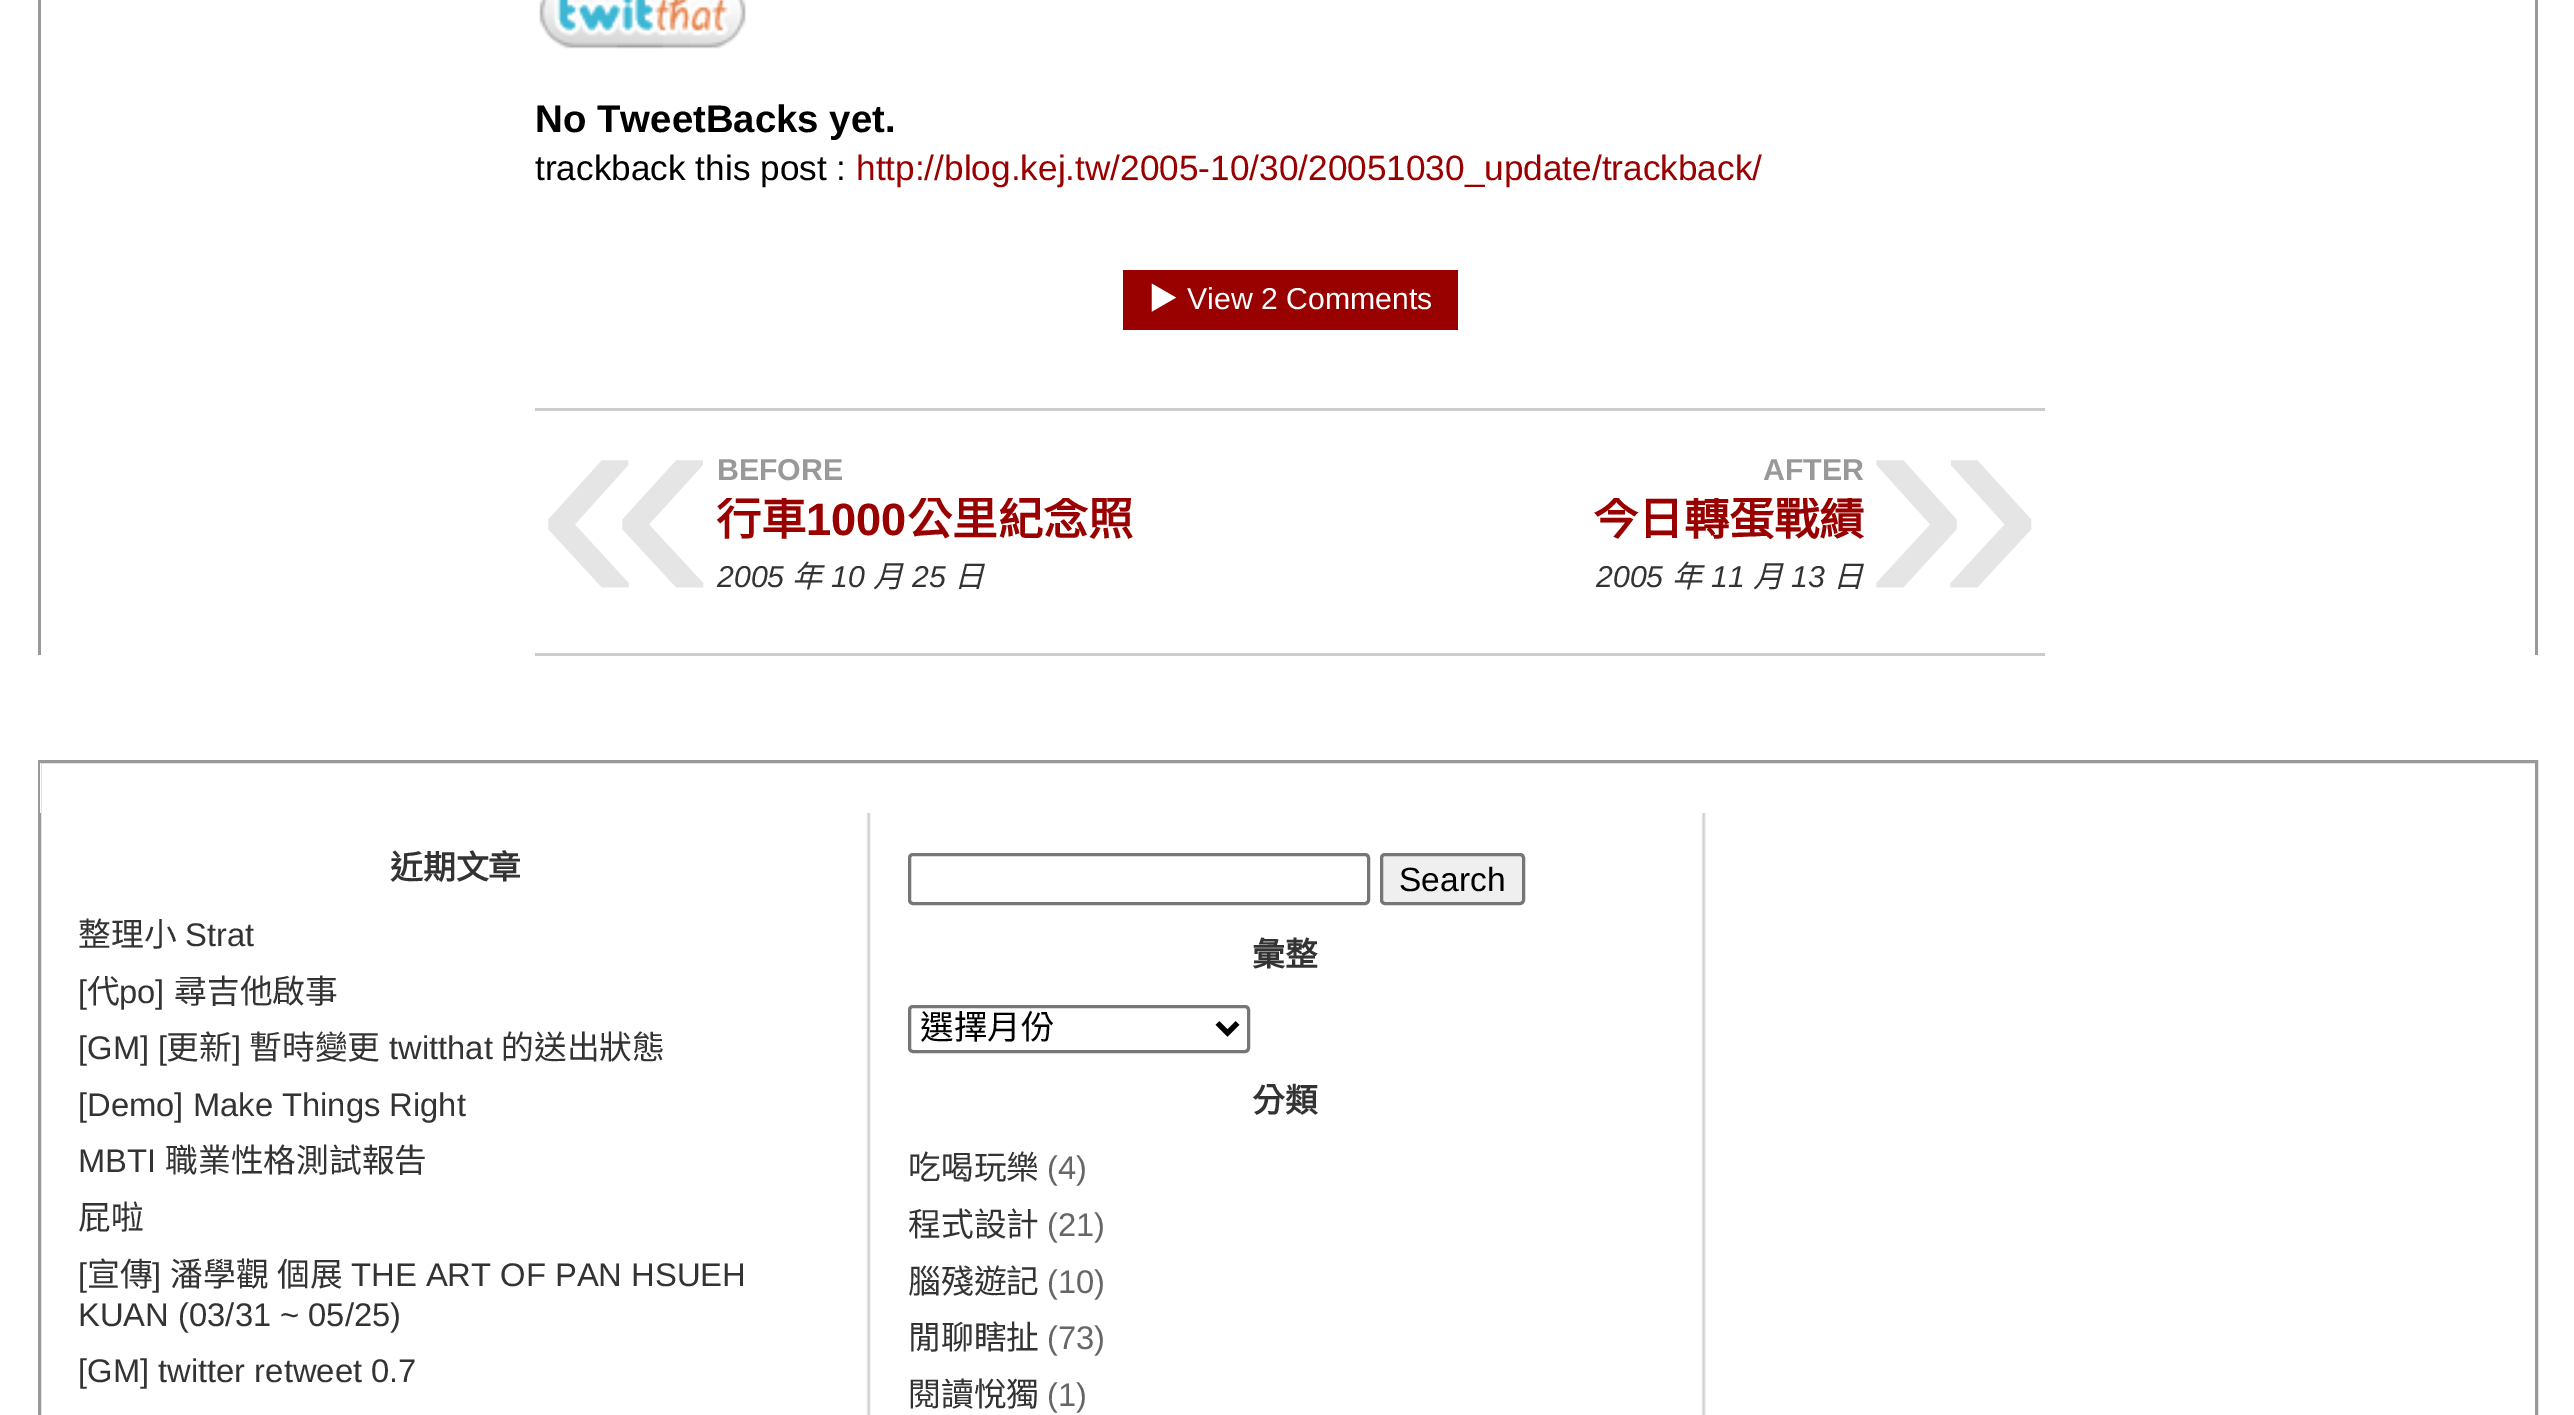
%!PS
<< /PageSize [2574 1415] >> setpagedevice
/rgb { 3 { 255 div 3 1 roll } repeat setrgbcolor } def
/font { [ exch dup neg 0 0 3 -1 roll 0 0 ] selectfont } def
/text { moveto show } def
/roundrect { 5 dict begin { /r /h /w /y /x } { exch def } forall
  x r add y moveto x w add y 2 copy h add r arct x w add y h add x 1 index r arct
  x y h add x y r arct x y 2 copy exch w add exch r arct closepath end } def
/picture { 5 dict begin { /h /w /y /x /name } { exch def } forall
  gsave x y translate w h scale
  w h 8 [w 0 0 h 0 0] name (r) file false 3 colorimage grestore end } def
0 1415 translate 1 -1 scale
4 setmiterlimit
255 255 255 rgb
0 0 2574 1415 rectfill
153 153 153 rgb
2535 0 3 655 rectfill
38 0 3 655 rectfill
(img_01.rgb) 539 0 207 49 picture
153 0 0 rgb
1123 270 335 60 rectfill
204 204 204 rgb
535 408 1510 3 rectfill
535 653 1510 3 rectfill
(img_02.rgb) 866 813 840 602 picture
153 153 153 rgb
3 setlinewidth
39.5 761.5 2497 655 rectstroke
255 255 255 rgb
40 763 1 50 rectfill
118 118 118 rgb
909.5 854.5 459 49 3.5 roundrect stroke
239 239 239 rgb
1381.5 854.5 142 49 3.5 roundrect gsave fill grestore
118 118 118 rgb
stroke
909.5 1006.5 339 45 3.5 roundrect stroke
0 0 0 rgb
5 setlinewidth
1217.5 1023 moveto 10 10 rlineto 10 -10 rlineto stroke
/LiberationSans-Bold 38.4 font
(No TweetBacks yet.) 535 132 text
/LiberationSans-Regular 35.2 font
(trackback this post :) 535 180 text
153 0 0 rgb
(http://blog.kej.tw/2005-10/30/20051030_update/trackback/) 856 180 text
/NotoSansCJKTC-Regular 30.25 font
255 255 255 rgb
(▶) 1148 309 text
/LiberationSans-Regular 30.25 font
(View 2 Comments) 1187 309 text
/LiberationSans-Regular 327 font
229 229 229 rgb
(«) 535 610 text
/LiberationSans-Bold 30.25 font
153 153 153 rgb
(BEFORE) 717 480 text
gsave
715 498 550 50 rectclip
/NotoSansCJKTC-Bold 45.25 font
153 0 0 rgb
(行車) 716 535 text
grestore
/LiberationSans-Bold 45.25 font
153 0 0 rgb
(1000) 806 535 text
gsave
715 498 550 50 rectclip
/NotoSansCJKTC-Bold 45.25 font
(公里紀念照) 907 535 text
grestore
/LiberationSans-Italic 30.25 font
51 51 51 rgb
(2005) 717 587 text
/NotoSansCJKTC-Italic 30.25 font
(年) 792 587 text
/LiberationSans-Italic 30.25 font
(10) 831 587 text
/NotoSansCJKTC-Italic 30.25 font
(月) 873 587 text
/LiberationSans-Italic 30.25 font
(25) 912 587 text
/NotoSansCJKTC-Italic 30.25 font
(日) 954 587 text
/LiberationSans-Bold 30.25 font
153 153 153 rgb
(AFTER) 1763 480 text
gsave
1315 498 550 50 rectclip
/NotoSansCJKTC-Bold 45.25 font
153 0 0 rgb
(今日轉蛋戰績) 1593 535 text
grestore
/LiberationSans-Italic 30.25 font
51 51 51 rgb
(2005) 1596 587 text
/NotoSansCJKTC-Italic 30.25 font
(年) 1672 587 text
/LiberationSans-Italic 30.25 font
(11) 1711 587 text
/NotoSansCJKTC-Italic 30.25 font
(月) 1753 587 text
/LiberationSans-Italic 30.25 font
(13) 1791 587 text
/NotoSansCJKTC-Italic 30.25 font
(日) 1833 587 text
/LiberationSans-Regular 327 font
229 229 229 rgb
(») 1863 610 text
/NotoSansCJKTC-Bold 32.75 font
51 51 51 rgb
(近期文章) 390 879 text
/NotoSansCJKTC-Regular 32.75 font
(整理小) 78 946 text
/LiberationSans-Regular 32.75 font
(Strat) 185 946 text
([) 78 1003 text
/NotoSansCJKTC-Regular 32.75 font
(代) 87 1003 text
/LiberationSans-Regular 32.75 font
(po]) 119 1003 text
/NotoSansCJKTC-Regular 32.75 font
(尋吉他啟事) 174 1003 text
/LiberationSans-Regular 32.75 font
([GM] [) 78 1059 text
/NotoSansCJKTC-Regular 32.75 font
(更新) 166 1059 text
/LiberationSans-Regular 32.75 font
(]) 232 1059 text
/NotoSansCJKTC-Regular 32.75 font
(暫時變更) 249 1059 text
/LiberationSans-Regular 32.75 font
(twitthat) 389 1059 text
/NotoSansCJKTC-Regular 32.75 font
(的送出狀態) 501 1059 text
/LiberationSans-Regular 32.75 font
([Demo] Make Things Right) 78 1116 text
(MBTI) 78 1172 text
/NotoSansCJKTC-Regular 32.75 font
(職業性格測試報告) 165 1172 text
(屁啦) 78 1229 text
/LiberationSans-Regular 32.75 font
([) 78 1286 text
/NotoSansCJKTC-Regular 32.75 font
(宣傳) 87 1286 text
/LiberationSans-Regular 32.75 font
(]) 152 1286 text
/NotoSansCJKTC-Regular 32.75 font
(潘學觀) 170 1286 text
(個展) 277 1286 text
/LiberationSans-Regular 32.75 font
(THE ART OF PAN HSUEH) 351 1286 text
(KUAN \(03/31 ~ 05/25\)) 78 1326 text
([GM] twitter retweet 0.7) 78 1382 text
/LiberationSans-Regular 33.5 font
0 0 0 rgb
(Search) 1399 891 text
/NotoSansCJKTC-Bold 32.75 font
51 51 51 rgb
(彙整) 1252 966 text
/NotoSansCJKTC-Regular 33.5 font
0 0 0 rgb
(選擇月份) 920 1039 text
/NotoSansCJKTC-Bold 32.75 font
51 51 51 rgb
(分類) 1252 1112 text
/NotoSansCJKTC-Regular 32.75 font
(吃喝玩樂) 908 1179 text
/LiberationSans-Regular 32.75 font
102 102 102 rgb
(\(4\)) 1047 1179 text
/NotoSansCJKTC-Regular 32.75 font
51 51 51 rgb
(程式設計) 908 1236 text
/LiberationSans-Regular 32.75 font
102 102 102 rgb
(\(21\)) 1047 1236 text
/NotoSansCJKTC-Regular 32.75 font
51 51 51 rgb
(腦殘遊記) 908 1293 text
/LiberationSans-Regular 32.75 font
102 102 102 rgb
(\(10\)) 1047 1293 text
/NotoSansCJKTC-Regular 32.75 font
51 51 51 rgb
(閒聊瞎扯) 908 1349 text
/LiberationSans-Regular 32.75 font
102 102 102 rgb
(\(73\)) 1047 1349 text
/NotoSansCJKTC-Regular 32.75 font
51 51 51 rgb
(閱讀悅獨) 908 1406 text
/LiberationSans-Regular 32.75 font
102 102 102 rgb
(\(1\)) 1047 1406 text
showpage
